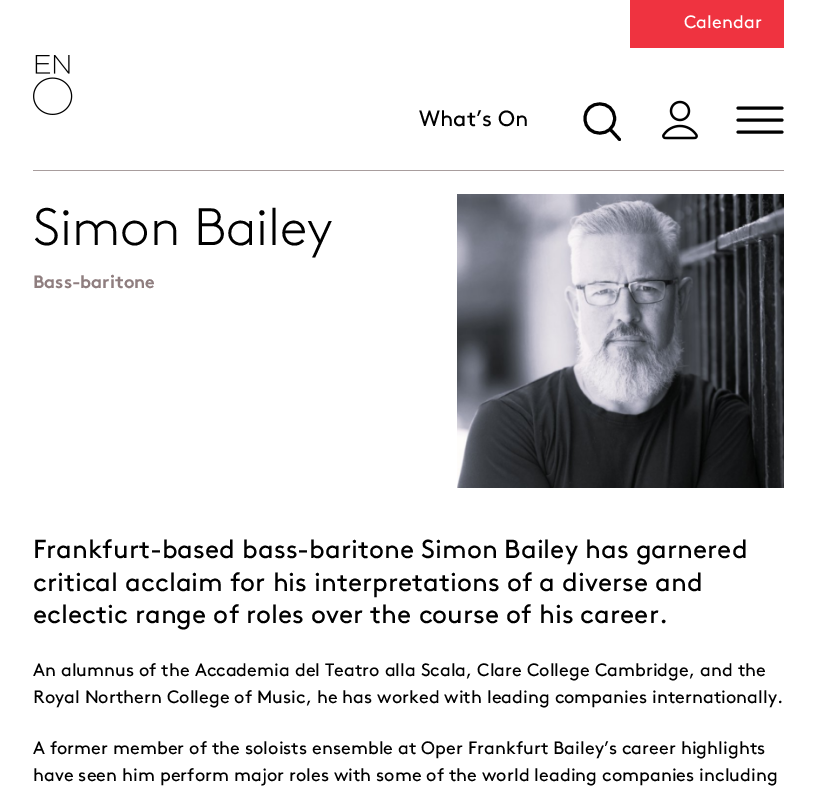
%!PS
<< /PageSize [817 788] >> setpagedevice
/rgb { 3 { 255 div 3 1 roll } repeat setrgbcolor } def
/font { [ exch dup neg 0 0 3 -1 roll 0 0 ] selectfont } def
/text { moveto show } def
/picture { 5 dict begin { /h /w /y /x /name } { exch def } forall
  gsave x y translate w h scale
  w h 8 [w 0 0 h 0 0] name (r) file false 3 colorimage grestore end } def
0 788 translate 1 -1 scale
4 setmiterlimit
255 255 255 rgb
0 0 817 788 rectfill
239 51 64 rgb
630 0 154 48 rectfill
(img_01.rgb) 33 55 40 60 picture
0 0 0 rgb
3 setlinewidth
1 setlinecap
1 setlinejoin
619.5 139.5 moveto -9.5 -10.5 rlineto 614.5 118.5 moveto 0 19.5 -29.5 19.5 -29.5 0 rcurveto 0 -19.5 29.5 -19.5 29.5 0 rcurveto closepath stroke
(img_02.rgb) 662 100 36 40 picture
0 setlinejoin
738 108 moveto 44 0 rlineto 738 120 moveto 44 0 rlineto 738 132 moveto 44 0 rlineto stroke
168 157 157 rgb
33 170 751 1 rectfill
(img_03.rgb) 457 194 327 294 picture
/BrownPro-Regular 18 font
255 255 255 rgb
(Calendar) 684 28 text
/BrownPro-Regular 22 font
0 0 0 rgb
(What’s On) 419 126 text
/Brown-Light 52.5 font
(Simon Bailey) 33 245 text
/Brown-Bold 18 font
143 126 127 rgb
(Bass-baritone) 33 288 text
/BrownPro-Regular 26.1 font
0 0 0 rgb
(Frankfurt-based bass-baritone Simon Bailey has garnered) 33 558 text
(critical acclaim for his interpretations of a diverse and) 33 591 text
(eclectic range of roles over the course of his career.) 33 623 text
/BrownPro-Regular 18 font
(An alumnus of the Accademia del Teatro alla Scala, Clare College Cambridge, and the) 33 676 text
(Royal Northern College of Music, he has worked with leading companies internationally.) 33 703 text
(A former member of the soloists ensemble at Oper Frankfurt Bailey’s career highlights) 33 754 text
(have seen him perform major roles with some of the world leading companies including) 33 781 text
showpage
